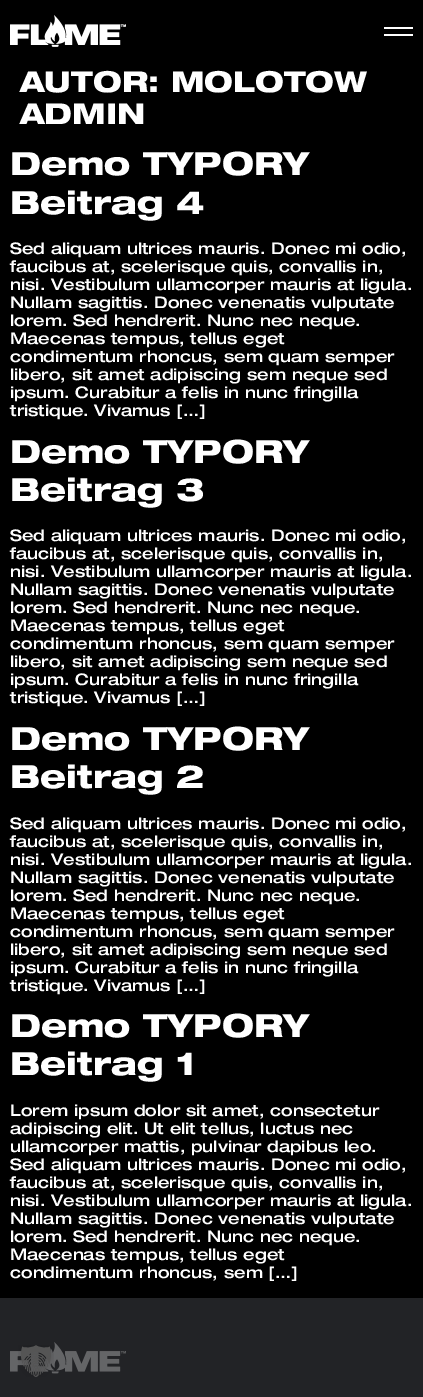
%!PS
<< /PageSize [423 1397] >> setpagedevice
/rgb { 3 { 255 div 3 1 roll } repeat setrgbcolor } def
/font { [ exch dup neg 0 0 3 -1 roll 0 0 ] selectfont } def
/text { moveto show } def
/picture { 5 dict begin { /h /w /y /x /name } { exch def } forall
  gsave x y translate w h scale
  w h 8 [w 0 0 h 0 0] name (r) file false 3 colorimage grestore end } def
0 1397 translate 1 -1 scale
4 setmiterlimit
0 0 0 rgb
0 0 423 1397 rectfill
(img_01.rgb) 10 15 116 32 picture
255 255 255 rgb
384 27 29 2 rectfill
384 34 29 2 rectfill
34 35 38 rgb
0 1298 423 99 rectfill
(img_02.rgb) 10 1342 116 32 picture
(img_03.rgb) 18 1345 36 32 picture
/HelveticaNeue-Bold 28.75 font
255 255 255 rgb
(AUTOR: MOLOTOW) 20 92 text
(ADMIN) 20 124 text
/HelveticaNeue-Bold 32 font
(Demo TYPORY) 10 175 text
(Beitrag 4) 10 214 text
/HelveticaNeue-Medium 16 font
(Sed aliquam ultrices mauris. Donec mi odio,) 10 254 text
(faucibus at, scelerisque quis, convallis in,) 10 272 text
(nisi. Vestibulum ullamcorper mauris at ligula.) 10 290 text
(Nullam sagittis. Donec venenatis vulputate) 10 308 text
(lorem. Sed hendrerit. Nunc nec neque.) 10 326 text
(Maecenas tempus, tellus eget) 10 344 text
(condimentum rhoncus, sem quam semper) 10 362 text
(libero, sit amet adipiscing sem neque sed) 10 380 text
(ipsum. Curabitur a felis in nunc fringilla) 10 398 text
(tristique. Vivamus […]) 10 416 text
/HelveticaNeue-Bold 32 font
(Demo TYPORY) 10 463 text
(Beitrag 3) 10 501 text
/HelveticaNeue-Medium 16 font
(Sed aliquam ultrices mauris. Donec mi odio,) 10 541 text
(faucibus at, scelerisque quis, convallis in,) 10 559 text
(nisi. Vestibulum ullamcorper mauris at ligula.) 10 577 text
(Nullam sagittis. Donec venenatis vulputate) 10 595 text
(lorem. Sed hendrerit. Nunc nec neque.) 10 613 text
(Maecenas tempus, tellus eget) 10 631 text
(condimentum rhoncus, sem quam semper) 10 649 text
(libero, sit amet adipiscing sem neque sed) 10 667 text
(ipsum. Curabitur a felis in nunc fringilla) 10 685 text
(tristique. Vivamus […]) 10 703 text
/HelveticaNeue-Bold 32 font
(Demo TYPORY) 10 750 text
(Beitrag 2) 10 788 text
/HelveticaNeue-Medium 16 font
(Sed aliquam ultrices mauris. Donec mi odio,) 10 829 text
(faucibus at, scelerisque quis, convallis in,) 10 847 text
(nisi. Vestibulum ullamcorper mauris at ligula.) 10 865 text
(Nullam sagittis. Donec venenatis vulputate) 10 883 text
(lorem. Sed hendrerit. Nunc nec neque.) 10 901 text
(Maecenas tempus, tellus eget) 10 919 text
(condimentum rhoncus, sem quam semper) 10 937 text
(libero, sit amet adipiscing sem neque sed) 10 955 text
(ipsum. Curabitur a felis in nunc fringilla) 10 973 text
(tristique. Vivamus […]) 10 991 text
/HelveticaNeue-Bold 32 font
(Demo TYPORY) 10 1037 text
(Beitrag 1) 10 1075 text
/HelveticaNeue-Medium 16 font
(Lorem ipsum dolor sit amet, consectetur) 10 1116 text
(adipiscing elit. Ut elit tellus, luctus nec) 10 1134 text
(ullamcorper mattis, pulvinar dapibus leo.) 10 1152 text
(Sed aliquam ultrices mauris. Donec mi odio,) 10 1170 text
(faucibus at, scelerisque quis, convallis in,) 10 1188 text
(nisi. Vestibulum ullamcorper mauris at ligula.) 10 1206 text
(Nullam sagittis. Donec venenatis vulputate) 10 1224 text
(lorem. Sed hendrerit. Nunc nec neque.) 10 1242 text
(Maecenas tempus, tellus eget) 10 1260 text
(condimentum rhoncus, sem […]) 10 1278 text
showpage
